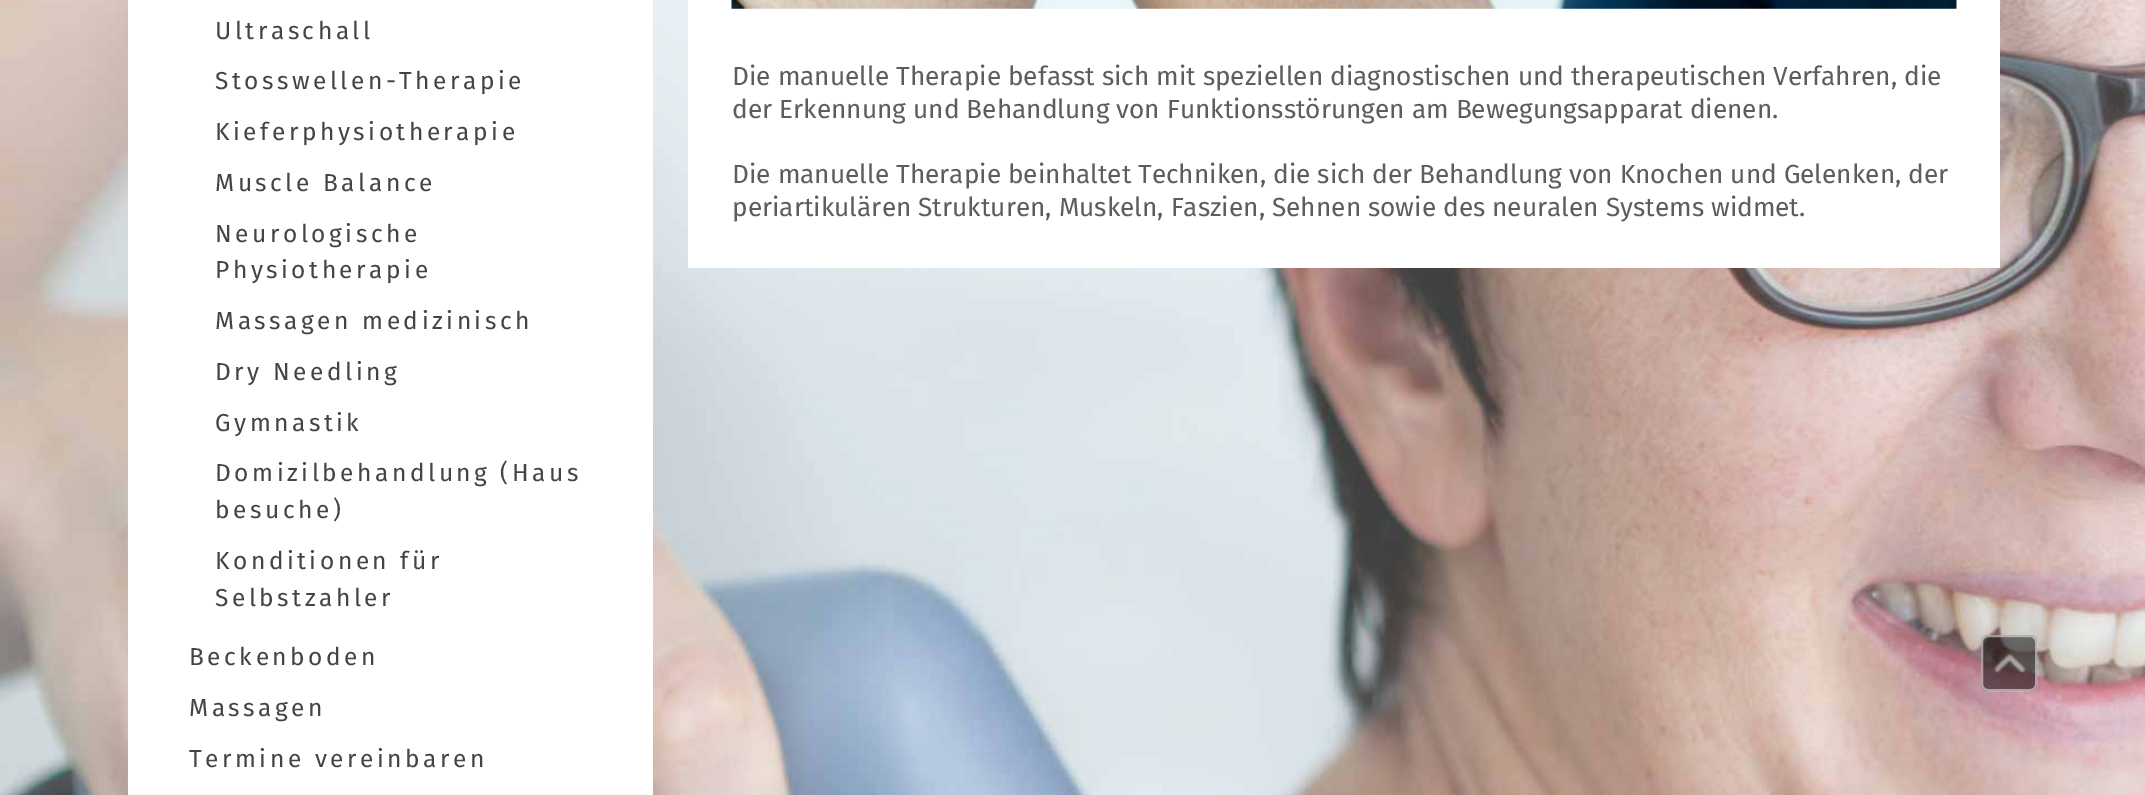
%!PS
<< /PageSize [2145 795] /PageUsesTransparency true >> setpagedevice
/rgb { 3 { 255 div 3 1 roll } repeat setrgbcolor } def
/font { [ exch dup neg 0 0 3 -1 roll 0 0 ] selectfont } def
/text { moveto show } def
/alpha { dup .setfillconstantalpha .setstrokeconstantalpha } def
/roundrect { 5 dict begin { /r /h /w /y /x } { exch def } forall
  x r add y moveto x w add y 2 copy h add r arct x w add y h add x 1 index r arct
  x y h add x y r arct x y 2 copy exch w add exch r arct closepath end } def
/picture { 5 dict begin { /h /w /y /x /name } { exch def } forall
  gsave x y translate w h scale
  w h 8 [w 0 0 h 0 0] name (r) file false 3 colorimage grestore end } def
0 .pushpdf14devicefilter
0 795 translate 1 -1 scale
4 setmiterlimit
255 255 255 rgb
0 0 2145 795 rectfill
(img_01.rgb) 0 0 2145 795 picture
128 0 525 795 rectfill
688 0 1312 268 rectfill
(img_02.rgb) 731 0 1226 9 picture
0.5 alpha
0 0 0 rgb
1981 635 56 56 7 roundrect fill
255 255 255 rgb
2 setlinewidth
1982 636 54 54 6 roundrect stroke
1 alpha
(img_03.rgb) 1994 654 32 19 picture
/FiraSans-Regular 24.5 font
68 68 68 rgb
215 39 moveto 3.5 0 (Ultraschall) ashow
215 89 moveto 3.5 0 (Stosswellen-Therapie) ashow
215 140 moveto 3.5 0 (Kieferphysiotherapie) ashow
215 191 moveto 3.5 0 (Muscle Balance) ashow
215 242 moveto 3.5 0 (Neurologische) ashow
215 278 moveto 3.5 0 (Physiotherapie) ashow
215 329 moveto 3.5 0 (Massagen medizinisch) ashow
215 380 moveto 3.5 0 (Dry Needling) ashow
215 431 moveto 3.5 0 (Gymnastik) ashow
215 481 moveto 3.5 0 (Domizilbehandlung \(Haus) ashow
215 518 moveto 3.5 0 (besuche\)) ashow
215 569 moveto 3.5 0 (Konditionen für) ashow
215 606 moveto 3.5 0 (Selbstzahler) ashow
189 665 moveto 3.5 0 (Beckenboden) ashow
189 716 moveto 3.5 0 (Massagen) ashow
189 767 moveto 3.5 0 (Termine vereinbaren) ashow
/FiraSans-Regular 26.25 font
93 93 93 rgb
(Die manuelle Therapie befasst sich mit speziellen diagnostischen und therapeutischen Verfahren, die) 732 85 text
(der Erkennung und Behandlung von Funktionsstörungen am Bewegungsapparat dienen.) 732 118 text
(Die manuelle Therapie beinhaltet Techniken, die sich der Behandlung von Knochen und Gelenken, der) 732 183 text
(periartikulären Strukturen, Muskeln, Faszien, Sehnen sowie des neuralen Systems widmet.) 732 216 text
.poppdf14devicefilter showpage
